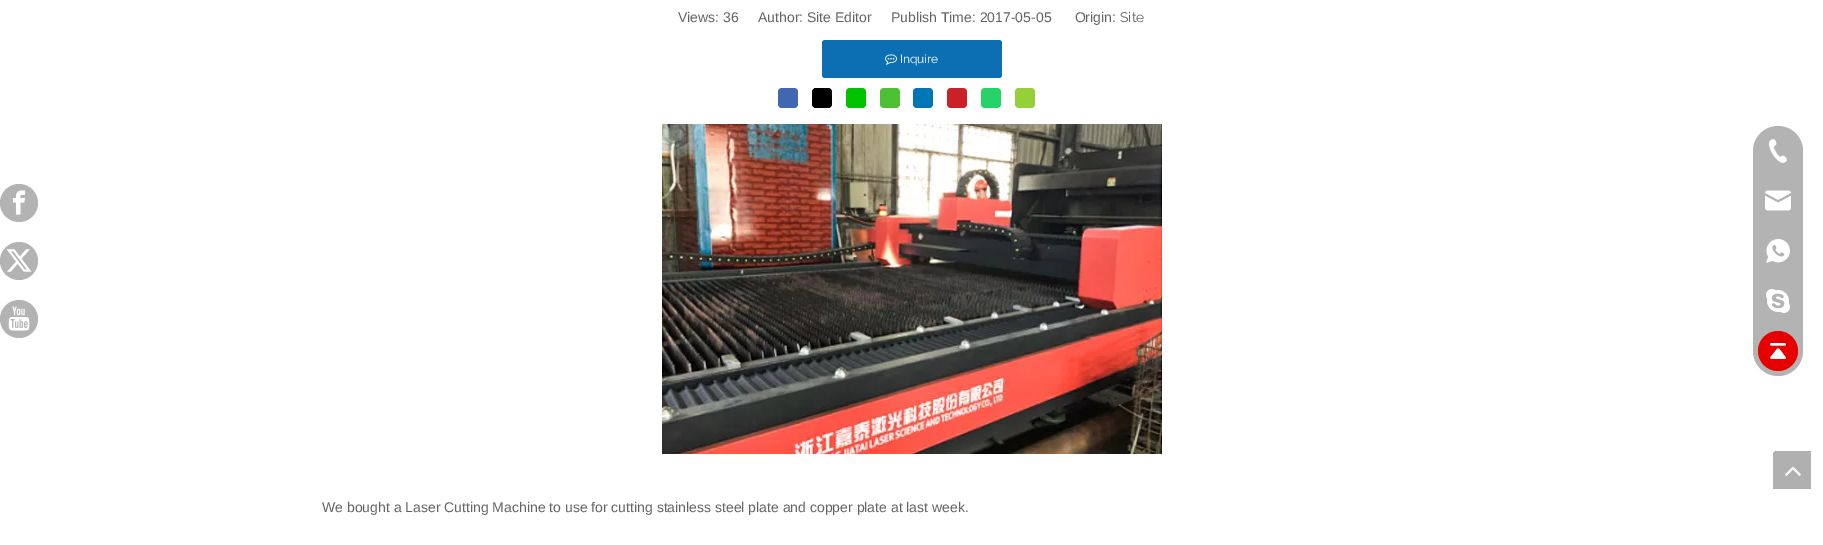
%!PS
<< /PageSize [1823 545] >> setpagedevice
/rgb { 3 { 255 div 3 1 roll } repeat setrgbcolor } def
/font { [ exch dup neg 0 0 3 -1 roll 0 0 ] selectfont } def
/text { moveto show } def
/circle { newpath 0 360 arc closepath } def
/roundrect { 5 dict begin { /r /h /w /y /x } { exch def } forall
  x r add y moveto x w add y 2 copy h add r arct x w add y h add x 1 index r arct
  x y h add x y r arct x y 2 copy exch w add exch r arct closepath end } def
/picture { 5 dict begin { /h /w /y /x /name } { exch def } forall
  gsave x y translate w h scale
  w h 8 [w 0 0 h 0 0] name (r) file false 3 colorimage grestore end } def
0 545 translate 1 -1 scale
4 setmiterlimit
255 255 255 rgb
0 0 1823 545 rectfill
12 111 179 rgb
822 40 180 38 3 roundrect fill
(img_01.rgb) 885 54 12 11 picture
66 103 178 rgb
778 88 20 20 4 roundrect fill
0 0 0 rgb
812 88 20 20 4 roundrect fill
0 195 0 rgb
846 88 20 20 4 roundrect fill
78 192 52 rgb
880 88 20 20 4 roundrect fill
0 119 181 rgb
913 88 20 20 4 roundrect fill
203 32 39 rgb
947 88 20 20 4 roundrect fill
37 211 102 rgb
981 88 20 20 4 roundrect fill
149 208 58 rgb
1015 88 20 20 4 roundrect fill
(img_02.rgb) 662 124 500 330 picture
179 179 179 rgb
19 203 19 circle fill
(img_03.rgb) 12 190 14 25 picture
19 261 19 circle fill
(img_04.rgb) 6 249 26 23 picture
19 319 19 circle fill
(img_05.rgb) 8 306 22 25 picture
1753 126 50 250 25 roundrect fill
(img_06.rgb) 1769 139 18 24 picture
(img_07.rgb) 1765 190 26 21 picture
(img_08.rgb) 1766 239 24 24 picture
(img_09.rgb) 1766 289 24 24 picture
230 0 0 rgb
1778 351 20 circle fill
(img_10.rgb) 1770 343 16 16 picture
(img_11.rgb) 1773 451 38 38 picture
/LiberationSans-Regular 14 font
100 100 100 rgb
(Views: 36) 678 22 text
(Author: Site Editor     Publish Time: 2017-05-05      Origin:) 758 22 text
/Raleway-Thin 14 font
(Site) 1120 22 text
/Raleway-Thin 12 font
255 255 255 rgb
(Inquire) 900 63 text
/LiberationSans-Regular 14 font
100 100 100 rgb
(We bought a Laser Cutting Machine to use for cutting stainless steel plate and copper plate at last week.) 322 512 text
showpage
